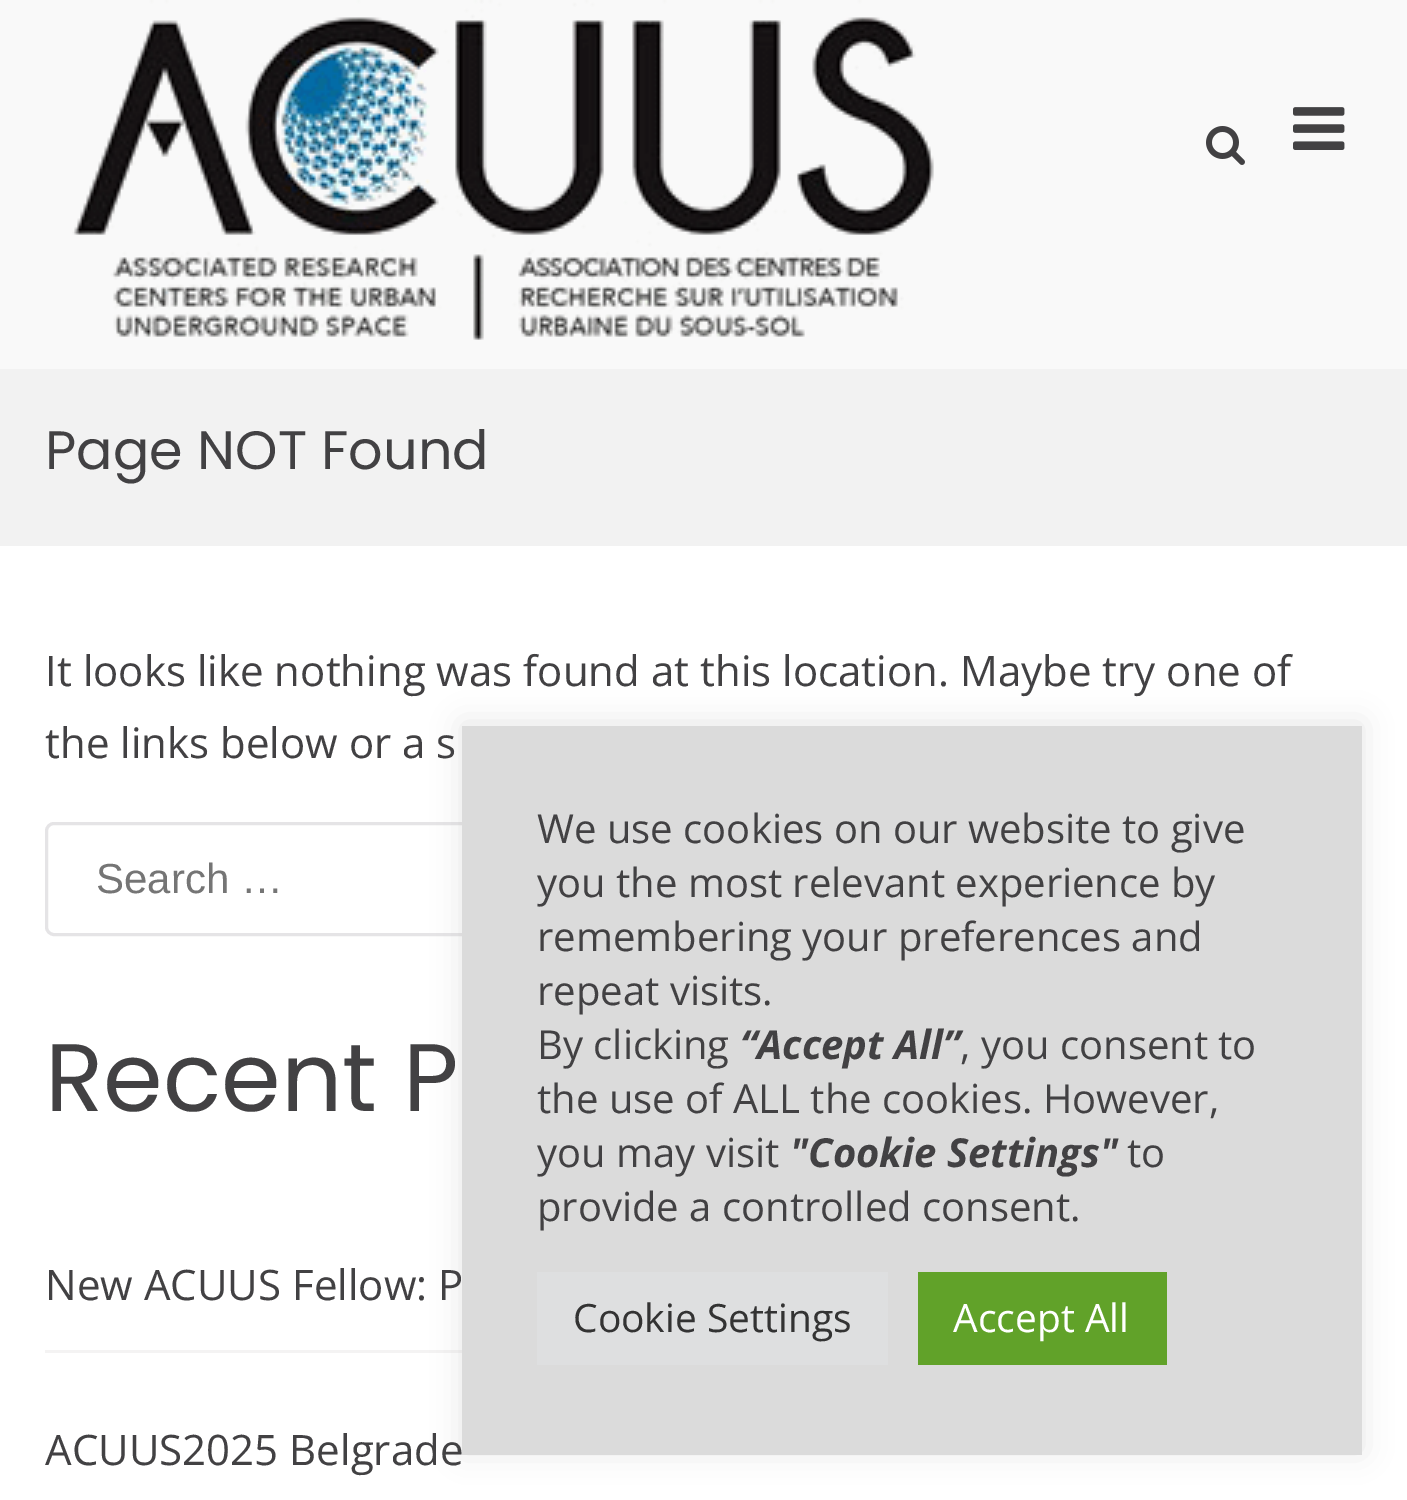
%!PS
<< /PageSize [1407 1500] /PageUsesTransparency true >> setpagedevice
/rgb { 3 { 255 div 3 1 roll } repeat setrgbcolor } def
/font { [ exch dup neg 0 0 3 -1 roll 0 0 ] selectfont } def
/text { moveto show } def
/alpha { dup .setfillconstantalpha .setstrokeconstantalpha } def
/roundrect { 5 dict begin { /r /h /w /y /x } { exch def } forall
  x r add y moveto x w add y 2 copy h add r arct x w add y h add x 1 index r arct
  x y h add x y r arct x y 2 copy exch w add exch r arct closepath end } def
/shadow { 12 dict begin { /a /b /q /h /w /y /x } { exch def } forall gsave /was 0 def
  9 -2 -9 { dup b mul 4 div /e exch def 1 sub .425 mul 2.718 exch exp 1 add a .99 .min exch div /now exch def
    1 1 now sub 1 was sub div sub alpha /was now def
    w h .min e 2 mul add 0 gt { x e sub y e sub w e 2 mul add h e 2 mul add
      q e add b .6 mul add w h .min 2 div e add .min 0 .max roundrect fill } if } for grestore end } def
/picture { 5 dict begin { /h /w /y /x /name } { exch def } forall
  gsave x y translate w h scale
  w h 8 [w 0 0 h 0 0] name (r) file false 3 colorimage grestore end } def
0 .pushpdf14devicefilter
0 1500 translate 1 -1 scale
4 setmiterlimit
255 255 255 rgb
0 0 1407 1500 rectfill
249 249 249 rgb
0 0 1407 369 rectfill
(img_01.rgb) 72 0 862 340 picture
(img_02.rgb) 1206 126 39 39 picture
(img_03.rgb) 1293 107 52 43 picture
242 242 242 rgb
0 369 1407 177 rectfill
229 228 230 rgb
3 setlinewidth
46.5 823.5 573 111 7.5 roundrect stroke
244 243 243 rgb
45 1350 417 3 rectfill
172 171 171 rgb
462 723 900 729 0 15 0.3 shadow
219 219 219 rgb
462 726 900 729 rectfill
222 223 224 rgb
537 1272 351 93 rectfill
97 162 41 rgb
918 1272 249 93 rectfill
/Poppins-Regular 54 font
66 65 67 rgb
(Page NOT Found) 45 469 text
/OpenSans-Regular 42 font
(It looks like nothing was found at this location. Maybe try one of) 45 686 text
(the links below or a s) 45 758 text
/LiberationSans-Regular 42 font
117 117 117 rgb
(Search …) 96 893 text
/Poppins-Regular 96 font
66 65 67 rgb
(Recent P) 45 1111 text
/OpenSans-Regular 42 font
(New ACUUS Fellow: P) 45 1300 text
(ACUUS2025 Belgrade) 45 1465 text
/OpenSans-Regular 40 font
(We use cookies on our website to give) 537 843 text
(you the most relevant experience by) 537 897 text
(remembering your preferences and) 537 951 text
(repeat visits.) 537 1005 text
(By clicking) 537 1059 text
/OpenSans-BoldItalic 40 font
(“Accept All”) 740 1059 text
/OpenSans-Regular 40 font
(, you consent to) 960 1059 text
(the use of ALL the cookies. However,) 537 1113 text
(you may visit) 537 1167 text
/OpenSans-BoldItalic 40 font
("Cookie Settings") 790 1167 text
/OpenSans-Regular 40 font
(to) 1127 1167 text
(provide a controlled consent.) 537 1221 text
/OpenSans-Regular 39 font
51 51 51 rgb
(Cookie Settings) 573 1332 text
255 255 255 rgb
(Accept All) 953 1332 text
.poppdf14devicefilter showpage
